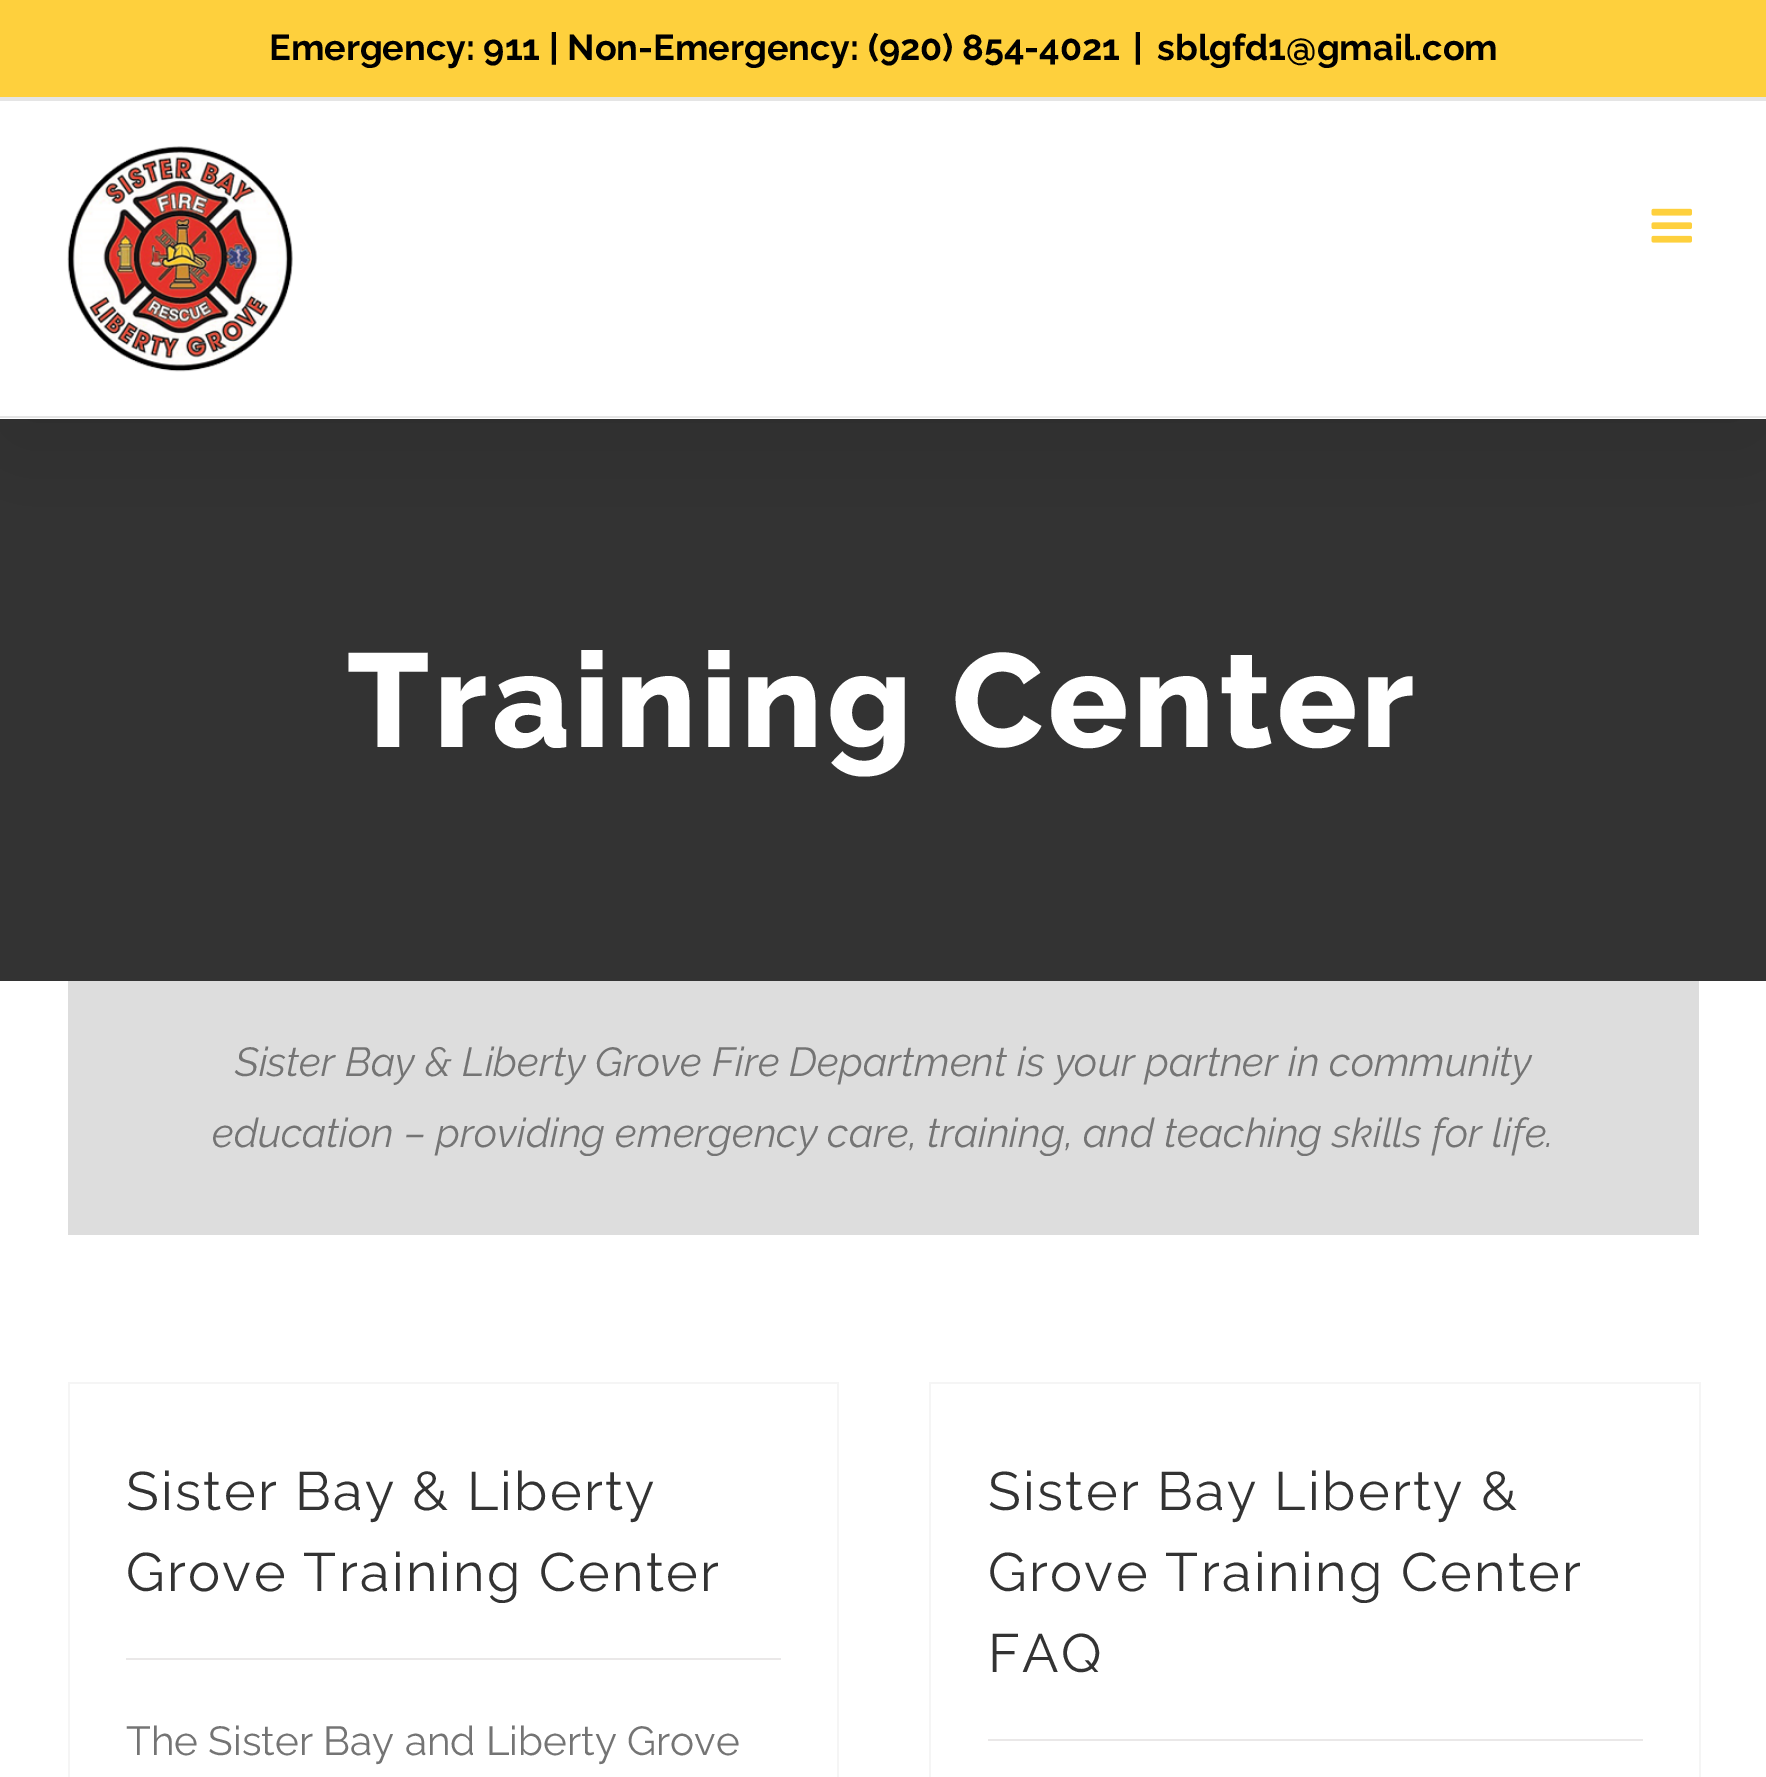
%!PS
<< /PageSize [1766 1777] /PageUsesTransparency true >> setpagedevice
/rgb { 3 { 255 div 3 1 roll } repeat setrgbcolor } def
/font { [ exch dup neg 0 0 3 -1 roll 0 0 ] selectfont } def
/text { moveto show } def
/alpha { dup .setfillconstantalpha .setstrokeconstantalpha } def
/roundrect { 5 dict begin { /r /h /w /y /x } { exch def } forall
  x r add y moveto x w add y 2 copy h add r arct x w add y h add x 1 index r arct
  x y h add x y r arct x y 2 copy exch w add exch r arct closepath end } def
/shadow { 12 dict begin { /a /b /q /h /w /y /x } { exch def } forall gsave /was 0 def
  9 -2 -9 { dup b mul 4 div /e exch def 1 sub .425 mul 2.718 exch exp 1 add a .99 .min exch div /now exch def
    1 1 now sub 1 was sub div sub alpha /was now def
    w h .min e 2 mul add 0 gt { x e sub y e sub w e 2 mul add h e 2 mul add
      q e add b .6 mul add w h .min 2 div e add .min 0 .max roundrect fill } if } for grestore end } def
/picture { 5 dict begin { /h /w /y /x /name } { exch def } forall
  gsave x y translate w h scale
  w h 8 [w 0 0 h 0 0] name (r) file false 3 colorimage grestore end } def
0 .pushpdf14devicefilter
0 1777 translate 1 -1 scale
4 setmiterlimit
255 255 255 rgb
0 0 1766 1777 rectfill
51 51 51 rgb
0 419 1766 562 rectfill
0 0 0 rgb
5 27 1757 410 0 56 0.14 shadow
254 208 61 rgb
0 0 1766 97 rectfill
229 229 229 rgb
0 97 1766 4 rectfill
255 255 255 rgb
0 101 1766 318 rectfill
229 229 229 rgb
0 416 1766 2 rectfill
(img_01.rgb) 67 146 226 226 picture
(img_02.rgb) 1651 208 41 35 picture
221 221 221 rgb
68 981 1631 254 rectfill
245 245 245 rgb
68 1382 771 2 rectfill
837 1382 2 395 rectfill
68 1382 2 395 rectfill
234 232 232 rgb
126 1658 655 2 rectfill
245 245 245 rgb
929 1382 772 2 rectfill
1699 1382 2 395 rectfill
929 1382 2 395 rectfill
234 232 232 rgb
988 1739 655 2 rectfill
/Raleway-Bold 36 font
0 0 0 rgb
(Emergency: 911 | Non-Emergency: \(920\) 854-4021) 269 60 text
(|) 1133 60 text
(sblgfd1@gmail.com) 1157 60 text
/Raleway-ExtraBold 133 font
255 255 255 rgb
347 747 moveto 4.5 0 (Training Center) ashow
/Raleway-Italic 40.5 font
116 116 116 rgb
(Sister Bay & Liberty Grove Fire Department is your partner in community) 235 1076 text
(education – providing emergency care, training, and teaching skills for life.) 212 1147 text
/Raleway-Regular 54 font
51 51 51 rgb
126 1510 moveto 2.25 0 (Sister Bay & Liberty) ashow
126 1591 moveto 2.25 0 (Grove Training Center) ashow
/Raleway-Regular 40.5 font
116 116 116 rgb
(The Sister Bay and Liberty Grove) 126 1755 text
/Raleway-Regular 54 font
51 51 51 rgb
988 1510 moveto 2.25 0 (Sister Bay Liberty &) ashow
988 1591 moveto 2.25 0 (Grove Training Center) ashow
988 1672 moveto 2.25 0 (FAQ) ashow
.poppdf14devicefilter showpage
